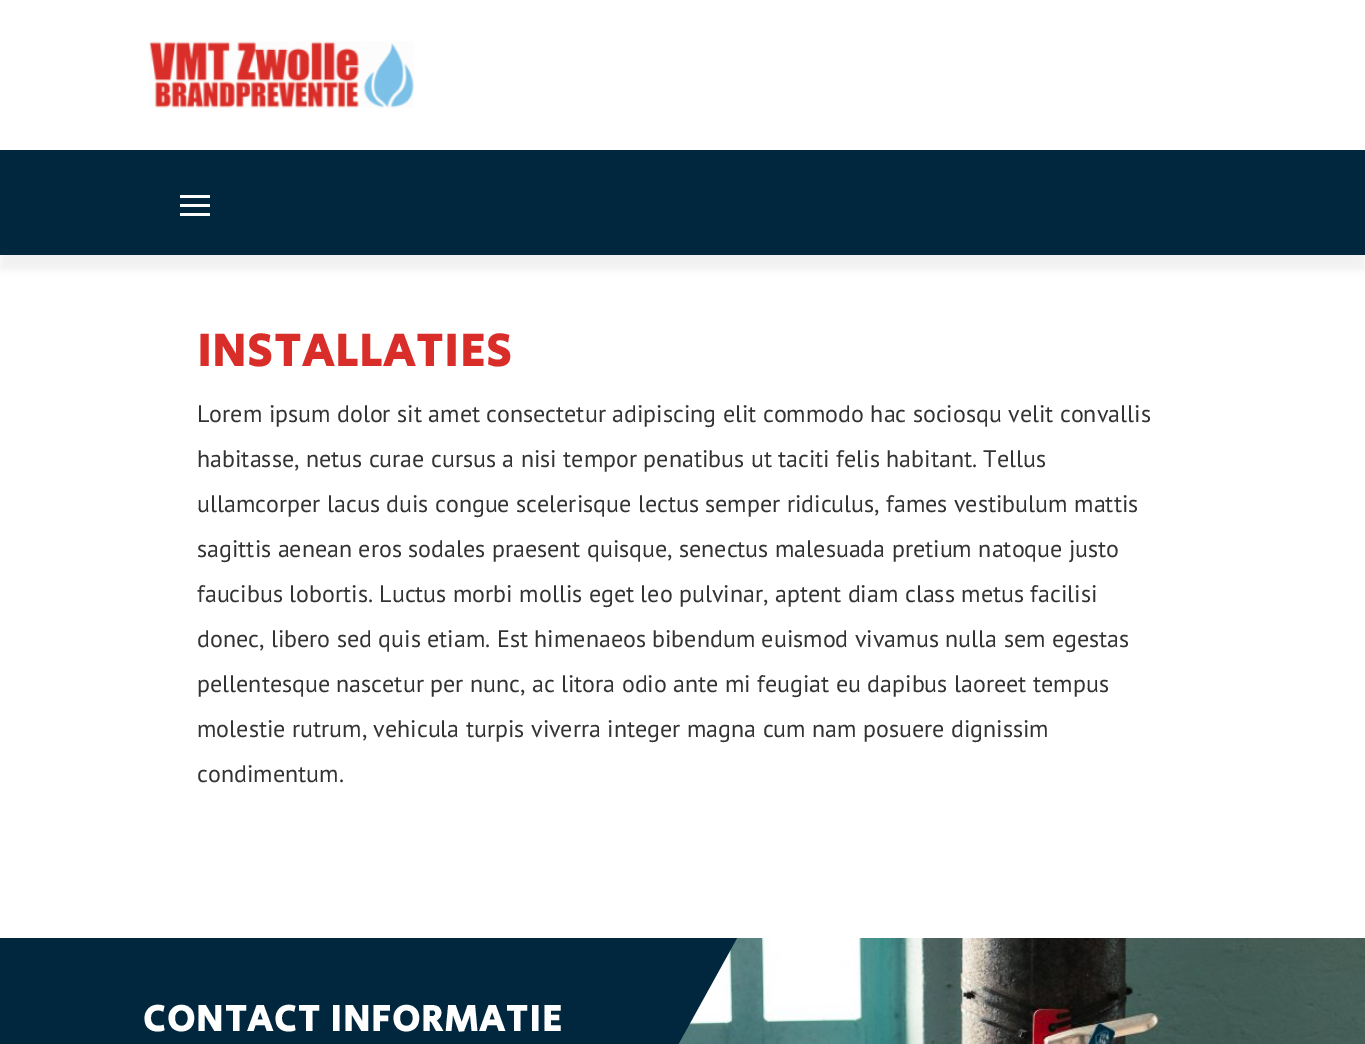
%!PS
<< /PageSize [1365 1044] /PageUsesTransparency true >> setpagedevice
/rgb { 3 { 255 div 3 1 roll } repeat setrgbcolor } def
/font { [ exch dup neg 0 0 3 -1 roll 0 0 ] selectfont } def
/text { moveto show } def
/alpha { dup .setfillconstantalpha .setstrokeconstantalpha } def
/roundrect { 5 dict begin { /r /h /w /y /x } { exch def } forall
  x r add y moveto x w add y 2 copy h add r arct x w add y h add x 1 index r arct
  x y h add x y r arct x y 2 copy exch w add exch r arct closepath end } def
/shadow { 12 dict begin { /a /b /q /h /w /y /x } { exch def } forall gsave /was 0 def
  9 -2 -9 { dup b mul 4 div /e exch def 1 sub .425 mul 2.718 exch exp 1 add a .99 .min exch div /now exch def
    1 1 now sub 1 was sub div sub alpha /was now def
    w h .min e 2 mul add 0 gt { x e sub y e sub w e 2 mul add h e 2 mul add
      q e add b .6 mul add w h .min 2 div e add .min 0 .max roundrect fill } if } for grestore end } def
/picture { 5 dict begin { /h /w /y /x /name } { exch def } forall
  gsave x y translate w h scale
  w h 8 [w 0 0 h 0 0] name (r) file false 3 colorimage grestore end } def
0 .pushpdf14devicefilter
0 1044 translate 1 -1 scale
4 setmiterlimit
255 255 255 rgb
0 0 1365 1044 rectfill
(img_01.rgb) 149 41 265 67 picture
0 0 0 rgb
0 165 1365 105 0 4 0.05 shadow
0 39 62 rgb
0 150 1365 105 rectfill
255 255 255 rgb
180 195 30 3 rectfill
180 204 30 3 rectfill
180 213 30 3 rectfill
(img_02.rgb) 678 938 687 106 picture
0 39 62 rgb
0 938 moveto 0 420 rlineto 505 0 rlineto 232 -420 rlineto closepath fill
/SecularOne-Bold 46.5 font
217 45 41 rgb
197 366 moveto 1.5 0 (INSTALLATIES) ashow
/PTSans-Regular 24 font
51 51 51 rgb
(Lorem ipsum dolor sit amet consectetur adipiscing elit commodo hac sociosqu velit convallis) 197 422 text
(habitasse, netus curae cursus a nisi tempor penatibus ut taciti felis habitant. Tellus) 197 467 text
(ullamcorper lacus duis congue scelerisque lectus semper ridiculus, fames vestibulum mattis) 197 512 text
(sagittis aenean eros sodales praesent quisque, senectus malesuada pretium natoque justo) 197 557 text
(faucibus lobortis. Luctus morbi mollis eget leo pulvinar, aptent diam class metus facilisi) 197 602 text
(donec, libero sed quis etiam. Est himenaeos bibendum euismod vivamus nulla sem egestas) 197 647 text
(pellentesque nascetur per nunc, ac litora odio ante mi feugiat eu dapibus laoreet tempus) 197 692 text
(molestie rutrum, vehicula turpis viverra integer magna cum nam posuere dignissim) 197 737 text
(condimentum.) 197 782 text
/SecularOne-Bold 37.5 font
255 255 255 rgb
143 1031 moveto 1.5 0 (CONTACT INFORMATIE) ashow
.poppdf14devicefilter showpage
